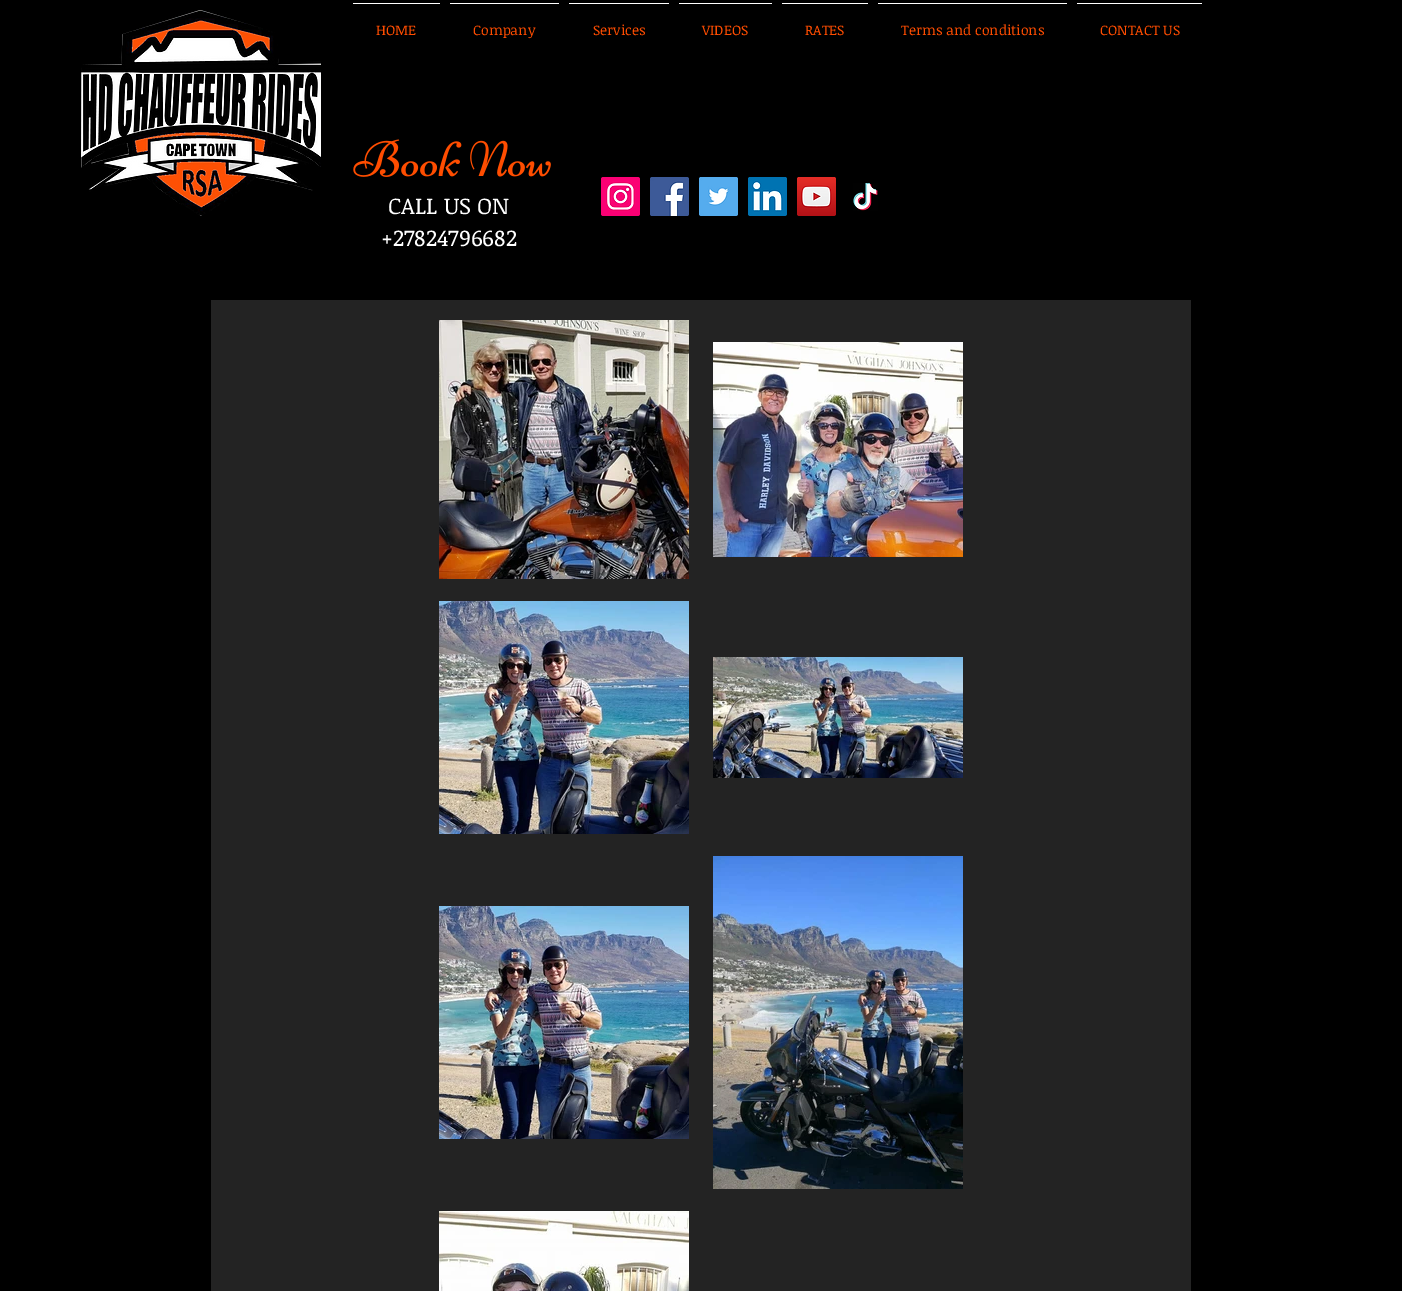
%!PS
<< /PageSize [1402 1291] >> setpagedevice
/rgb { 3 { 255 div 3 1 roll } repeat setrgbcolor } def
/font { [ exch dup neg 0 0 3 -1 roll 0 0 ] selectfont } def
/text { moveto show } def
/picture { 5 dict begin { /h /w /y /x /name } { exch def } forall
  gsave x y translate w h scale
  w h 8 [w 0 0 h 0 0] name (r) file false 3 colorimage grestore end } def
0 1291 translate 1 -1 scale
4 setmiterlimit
0 0 0 rgb
0 0 1402 1291 rectfill
(img_01.rgb) 81 10 240 206 picture
255 255 255 rgb
353 3 87 1 rectfill
450 3 109 1 rectfill
569 3 100 1 rectfill
679 3 93 1 rectfill
782 3 86 1 rectfill
878 3 189 1 rectfill
1077 3 125 1 rectfill
(img_02.rgb) 353 139 198 38 picture
(img_03.rgb) 601 177 39 39 picture
(img_04.rgb) 650 177 39 39 picture
(img_05.rgb) 699 177 39 39 picture
(img_06.rgb) 748 177 39 39 picture
(img_07.rgb) 797 177 39 39 picture
(img_08.rgb) 853 183 25 28 picture
35 35 35 rgb
211 300 980 991 rectfill
(img_09.rgb) 439 320 250 259 picture
(img_10.rgb) 713 342 250 215 picture
(img_11.rgb) 439 601 250 233 picture
(img_12.rgb) 713 657 250 121 picture
(img_11.rgb) 439 906 250 233 picture
(img_13.rgb) 713 856 250 333 picture
(img_14.rgb) 439 1211 250 80 picture
/NoticiaText-Regular 14 font
255 77 0 rgb
(HOME) 376 35 text
(Company) 473 35 text
(Services) 593 35 text
(VIDEOS) 702 35 text
(RATES) 805 35 text
(Terms and conditions) 901 35 text
(CONTACT US) 1100 35 text
/NoticiaText-Regular 23 font
255 255 255 rgb
(CALL US ON) 388 214 text
(+27824796682) 381 246 text
showpage
